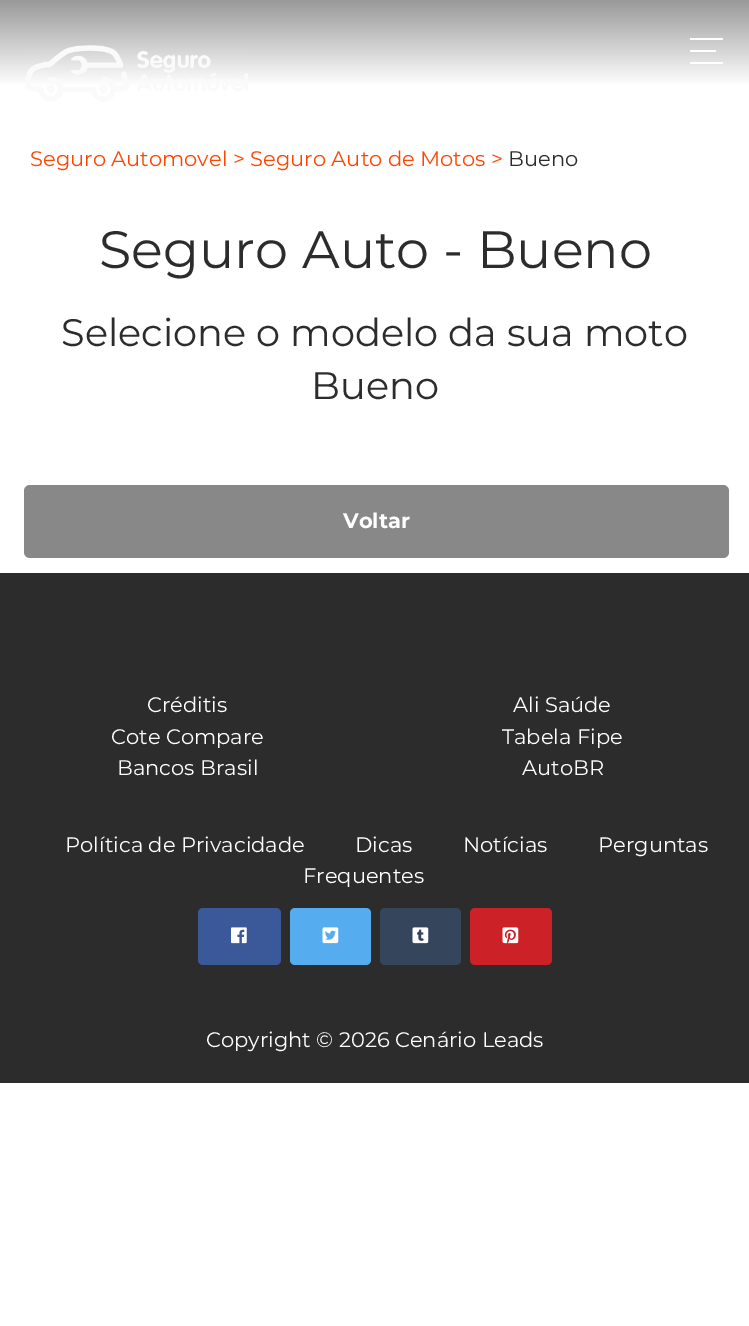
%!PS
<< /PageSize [749 1326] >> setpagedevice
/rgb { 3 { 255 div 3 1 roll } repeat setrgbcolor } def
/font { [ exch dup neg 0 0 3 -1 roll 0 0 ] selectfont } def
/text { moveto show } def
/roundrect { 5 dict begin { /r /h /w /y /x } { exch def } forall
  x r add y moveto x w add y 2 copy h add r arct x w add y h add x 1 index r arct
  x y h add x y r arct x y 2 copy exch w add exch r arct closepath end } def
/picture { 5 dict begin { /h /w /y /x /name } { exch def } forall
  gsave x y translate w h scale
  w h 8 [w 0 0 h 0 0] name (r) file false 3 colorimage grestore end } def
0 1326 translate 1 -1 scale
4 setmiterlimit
255 255 255 rgb
0 0 749 1326 rectfill
gsave 0 0 moveto 749 0 rlineto 0 84 rlineto -749 0 rlineto closepath clip newpath
<< /ShadingType 2 /ColorSpace /DeviceRGB /Coords [375 86 375 0] /Extend [true true] /Function << /FunctionType 2 /Domain [0 1] /C0 [1 1 1] /C1 [0.6 0.6 0.6] /N 1 >> >> shfill grestore
(img_01.rgb) 25 45 223 57 picture
690 38 33 2 1 roundrect fill
690 50 26 2 1 roundrect fill
690 62 33 2 1 roundrect fill
136 136 136 rgb
24 485 705 73 6 roundrect fill
44 44 44 rgb
0 573 749 510 rectfill
59 89 152 rgb
198 908 83 57 5 roundrect fill
(img_02.rgb) 231 927 16 17 picture
85 172 238 rgb
290 908 81 57 5 roundrect fill
(img_03.rgb) 322 927 17 17 picture
53 70 92 rgb
380 908 81 57 5 roundrect fill
(img_04.rgb) 412 927 17 17 picture
204 33 39 rgb
470 908 82 57 5 roundrect fill
(img_05.rgb) 502 927 17 17 picture
/Montserrat-Regular 21 font
255 69 0 rgb
(Seguro Automovel > Seguro Auto de Motos >) 30 166 text
44 44 44 rgb
(Bueno) 508 166 text
/Montserrat-Regular 52.5 font
(Seguro Auto - Bueno) 99 268 text
/Montserrat-Regular 38.3 font
(Selecione o modelo da sua moto) 61 346 text
(Bueno) 311 399 text
/Montserrat-Bold 21 font
255 255 255 rgb
(Voltar) 343 528 text
/Montserrat-Regular 21 font
(Créditis) 147 712 text
(Cote Compare) 111 744 text
(Bancos Brasil) 117 775 text
(Ali Saúde) 513 712 text
(Tabela Fipe) 502 744 text
(AutoBR) 522 775 text
(Política de Privacidade) 65 852 text
(Dicas) 355 852 text
(Notícias) 463 852 text
(Perguntas) 598 852 text
(Frequentes) 303 883 text
(Copyright © 2026 Cenário Leads) 206 1047 text
showpage
